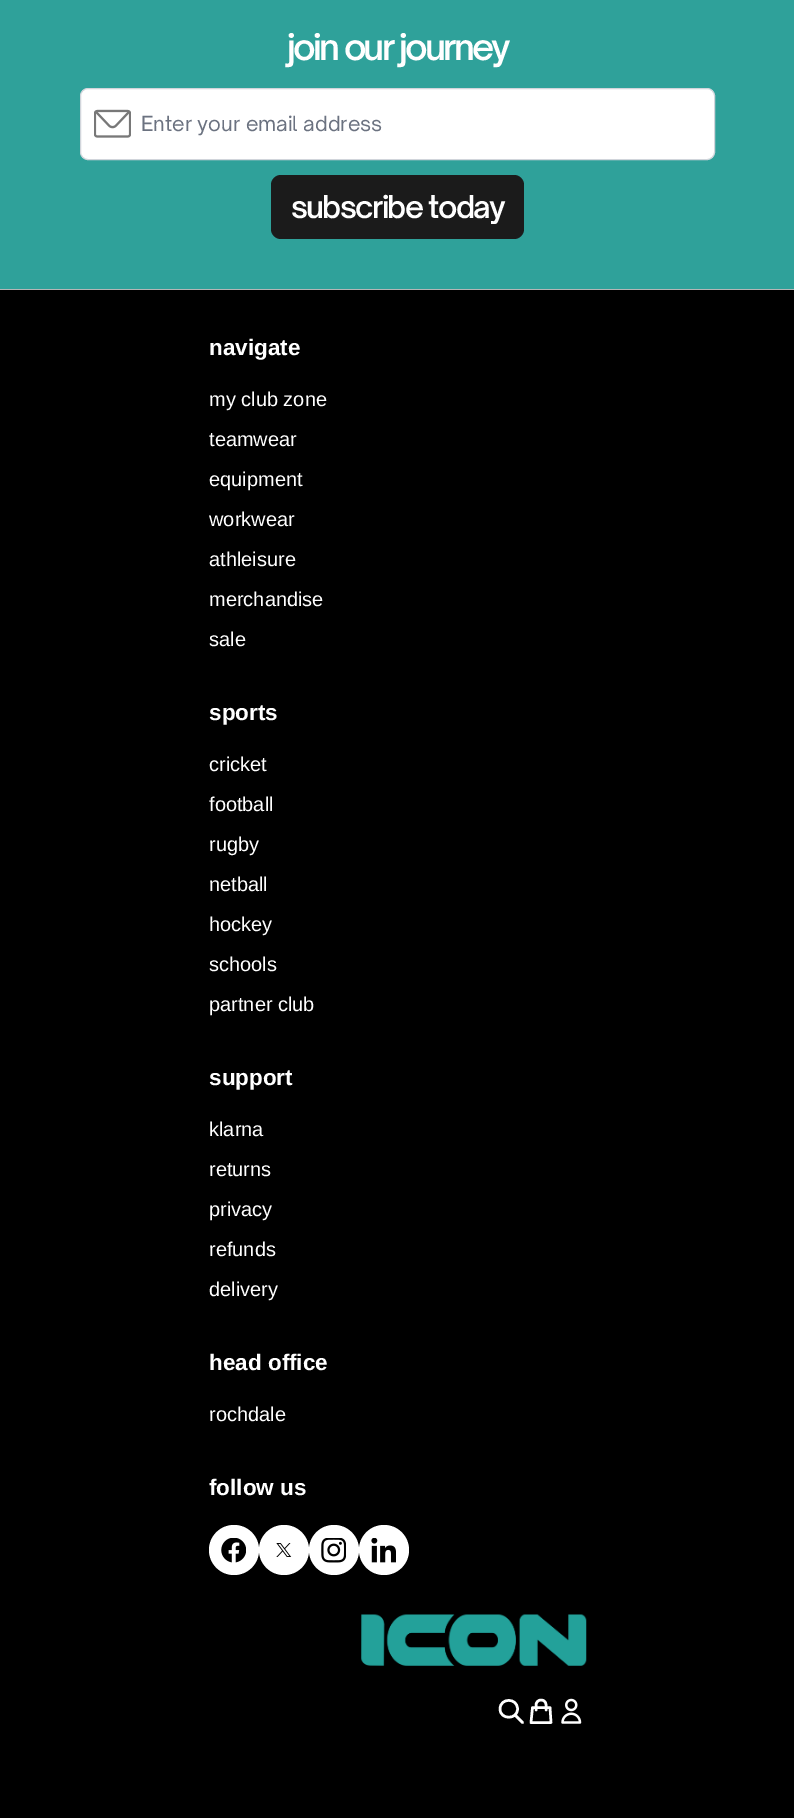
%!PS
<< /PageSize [794 1818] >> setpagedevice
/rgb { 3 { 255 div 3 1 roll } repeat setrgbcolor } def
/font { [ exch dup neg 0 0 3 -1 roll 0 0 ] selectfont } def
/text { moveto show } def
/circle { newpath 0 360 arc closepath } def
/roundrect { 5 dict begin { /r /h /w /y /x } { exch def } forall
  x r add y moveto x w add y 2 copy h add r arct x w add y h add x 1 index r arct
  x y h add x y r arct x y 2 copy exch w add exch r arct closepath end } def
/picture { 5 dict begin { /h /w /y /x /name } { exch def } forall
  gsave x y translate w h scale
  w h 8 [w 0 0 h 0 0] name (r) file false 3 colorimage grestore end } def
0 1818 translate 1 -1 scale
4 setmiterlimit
47 161 154 rgb
0 0 794 1818 rectfill
255 255 255 rgb
80.5 88.5 634 71 7.5 roundrect gsave fill grestore
209 213 219 rgb
stroke
(img_01.rgb) 94 109 37 29 picture
27 27 27 rgb
271 175 253 64 10 roundrect fill
0 0 0 rgb
0 290 794 1528 rectfill
182 182 182 rgb
0 289 794 1 rectfill
255 255 255 rgb
234 1550 25 circle fill
(img_02.rgb) 221 1538 25 25 picture
284 1550 25 circle fill
(img_03.rgb) 276 1543 16 14 picture
334 1550 25 circle fill
(img_04.rgb) 321 1538 25 25 picture
384 1550 25 circle fill
(img_05.rgb) 371 1538 25 25 picture
(img_06.rgb) 361 1614 226 52 picture
2.5 setlinewidth
1 setlinecap
1 setlinejoin
522.5 1722.5 moveto -7.5 -7.5 rlineto 517.5 1709 moveto 0 11 -17.5 11 -17.5 0 rcurveto 0 -11.5 17.5 -11.5 17.5 0 rcurveto closepath 546 1710 moveto 0 -5 rlineto 0 -3 -2 -5 -5 -5 rcurveto -2.5 0 -5 2 -5 5 rcurveto 0 5 rlineto 532.5 1707.5 moveto 17.5 0 rlineto 1 15 rlineto -20 0 rlineto closepath stroke
(img_07.rgb) 561 1698 21 26 picture
/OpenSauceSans-SemiBold 35 font
287 60 moveto -2.75 0 (join our journey) ashow
/OpenSauceSans-Regular 20 font
107 114 128 rgb
(Enter your email address) 141 131 text
/OpenSauceSans-SemiBold 30 font
255 255 255 rgb
291 218 moveto -1.75 0 (subscribe today) ashow
/LiberationSans-Bold 22.5 font
(navigate) 209 355 text
/LiberationSans-Regular 20 font
(my club zone) 209 406 text
(teamwear) 209 446 text
(equipment) 209 486 text
(workwear) 209 526 text
(athleisure) 209 566 text
(merchandise) 209 606 text
(sale) 209 646 text
/LiberationSans-Bold 22.5 font
(sports) 209 720 text
/LiberationSans-Regular 20 font
(cricket) 209 771 text
(football) 209 811 text
(rugby) 209 851 text
(netball) 209 891 text
(hockey) 209 931 text
(schools) 209 971 text
(partner club) 209 1011 text
/LiberationSans-Bold 22.5 font
(support) 209 1085 text
/LiberationSans-Regular 20 font
(klarna) 209 1136 text
(returns) 209 1176 text
(privacy) 209 1216 text
(refunds) 209 1256 text
(delivery) 209 1296 text
/LiberationSans-Bold 22.5 font
(head office) 209 1370 text
/LiberationSans-Regular 20 font
(rochdale) 209 1421 text
/LiberationSans-Bold 22.5 font
(follow us) 209 1495 text
showpage
